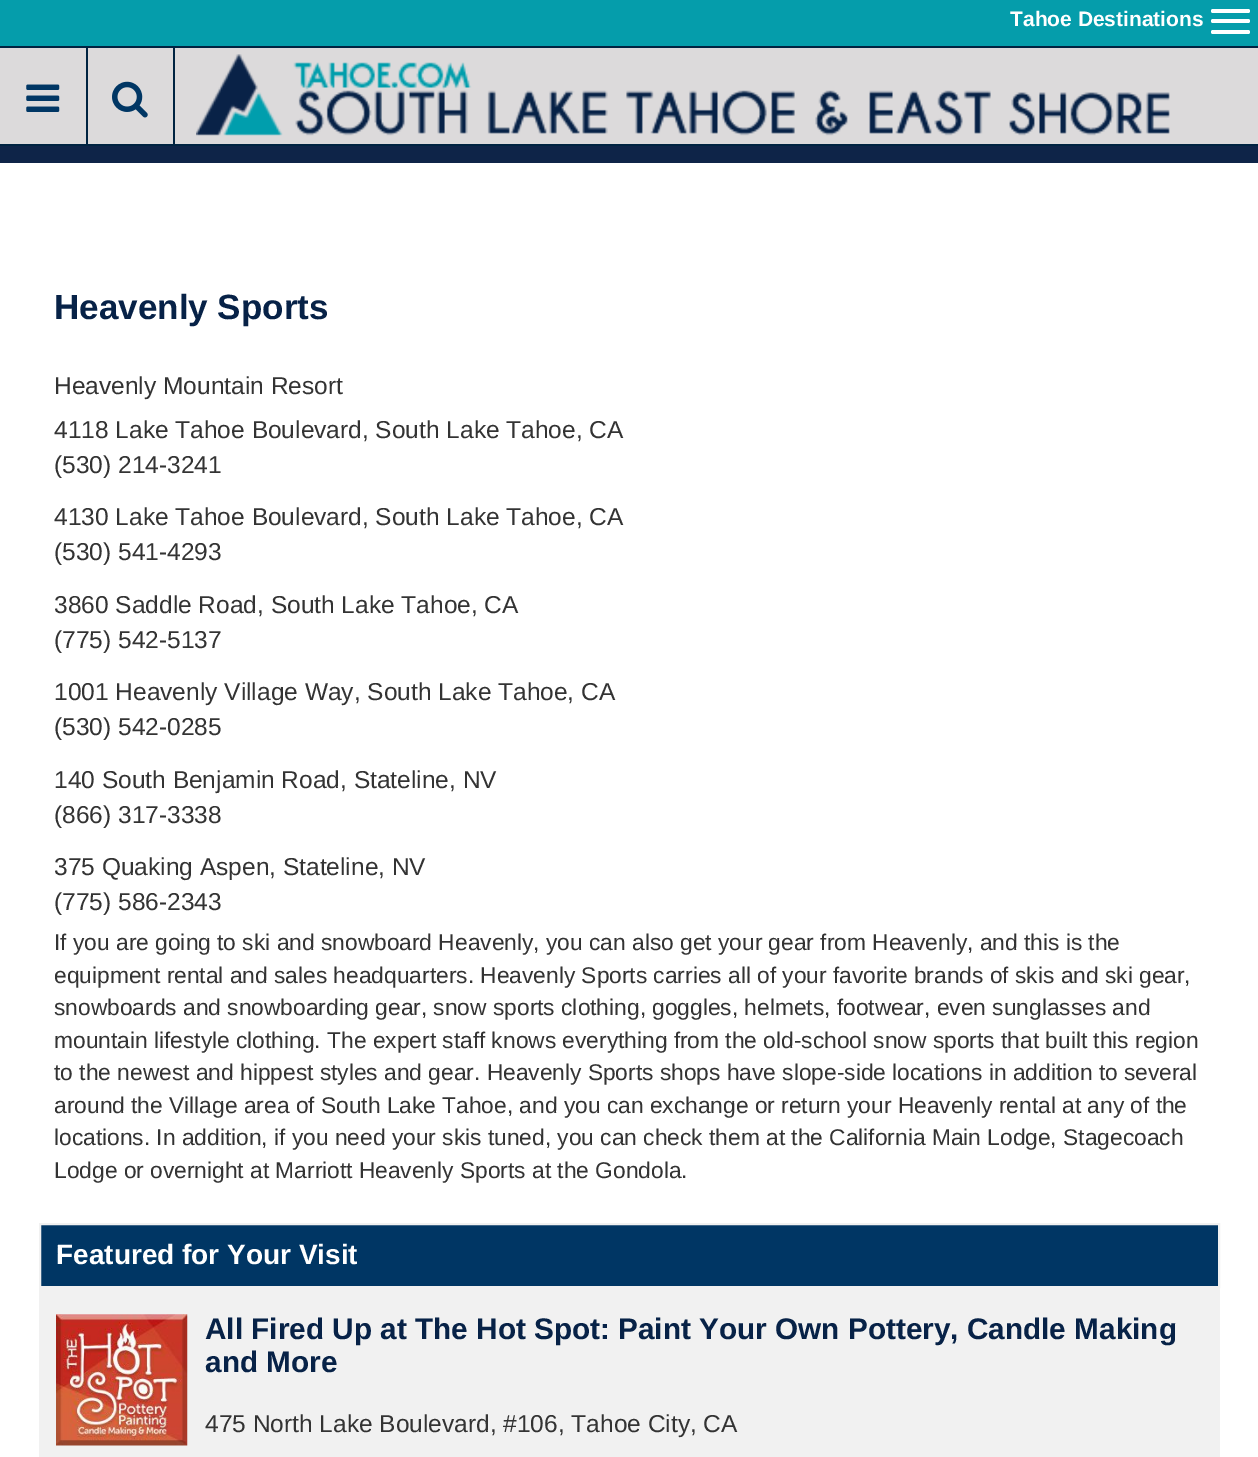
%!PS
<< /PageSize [1258 1457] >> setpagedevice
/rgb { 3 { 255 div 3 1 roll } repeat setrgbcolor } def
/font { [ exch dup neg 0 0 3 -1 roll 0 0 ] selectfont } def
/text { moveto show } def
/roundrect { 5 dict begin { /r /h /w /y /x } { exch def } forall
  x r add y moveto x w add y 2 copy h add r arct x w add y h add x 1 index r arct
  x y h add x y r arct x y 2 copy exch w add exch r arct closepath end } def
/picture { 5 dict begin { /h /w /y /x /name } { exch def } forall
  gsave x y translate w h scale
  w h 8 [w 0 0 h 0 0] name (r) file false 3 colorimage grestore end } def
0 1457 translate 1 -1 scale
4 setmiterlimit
14 36 72 rgb
0 0 1258 1457 rectfill
5 157 171 rgb
0 0 1258 46 rectfill
255 255 255 rgb
1211 9 39 4 2 roundrect fill
1211 19 39 4 2 roundrect fill
1211 30 39 4 2 roundrect fill
220 218 219 rgb
0 48 1258 96 rectfill
0 35 65 rgb
0 46 1258 2 rectfill
0 144 1258 2 rectfill
86 47 2 97 rectfill
(img_01.rgb) 26 84 34 28 picture
173 47 2 97 rectfill
(img_02.rgb) 112 81 36 37 picture
(img_03.rgb) 196 54 974 82 picture
255 255 255 rgb
0 163 1258 1294 rectfill
241 241 241 rgb
39 1288 1181 169 rectfill
0 54 100 rgb
40 1224 moveto 1179 0 rlineto 0 63 rlineto -1179 0 rlineto closepath gsave fill grestore
241 241 241 rgb
2 setlinewidth
stroke
(img_04.rgb) 56 1314 132 132 picture
/LiberationSans-Bold 21 font
255 255 255 rgb
(Tahoe Destinations) 1010 26 text
/LiberationSans-Bold 35 font
7 34 71 rgb
(Heavenly Sports) 54 319 text
/LiberationSans-Regular 24.5 font
51 51 51 rgb
(Heavenly Mountain Resort) 54 394 text
(4118 Lake Tahoe Boulevard, South Lake Tahoe, CA) 54 438 text
(\(530\) 214-3241) 54 473 text
(4130 Lake Tahoe Boulevard, South Lake Tahoe, CA) 54 525 text
(\(530\) 541-4293) 54 560 text
(3860 Saddle Road, South Lake Tahoe, CA) 54 613 text
(\(775\) 542-5137) 54 648 text
(1001 Heavenly Village Way, South Lake Tahoe, CA) 54 700 text
(\(530\) 542-0285) 54 735 text
(140 South Benjamin Road, Stateline, NV) 54 788 text
(\(866\) 317-3338) 54 823 text
(375 Quaking Aspen, Stateline, NV) 54 875 text
(\(775\) 586-2343) 54 910 text
/LiberationSans-Regular 22.75 font
(If you are going to ski and snowboard Heavenly, you can also get your gear from Heavenly, and this is the) 54 950 text
(equipment rental and sales headquarters. Heavenly Sports carries all of your favorite brands of skis and ski gear,) 54 983 text
(snowboards and snowboarding gear, snow sports clothing, goggles, helmets, footwear, even sunglasses and) 54 1015 text
(mountain lifestyle clothing. The expert staff knows everything from the old-school snow sports that built this region) 54 1048 text
(to the newest and hippest styles and gear. Heavenly Sports shops have slope-side locations in addition to several) 54 1080 text
(around the Village area of South Lake Tahoe, and you can exchange or return your Heavenly rental at any of the) 54 1113 text
(locations. In addition, if you need your skis tuned, you can check them at the California Main Lodge, Stagecoach) 54 1145 text
(Lodge or overnight at Marriott Heavenly Sports at the Gondola.) 54 1178 text
/LiberationSans-Bold 28 font
255 255 255 rgb
(Featured for Your Visit) 56 1264 text
/LiberationSans-Bold 29.75 font
7 34 71 rgb
(All Fired Up at The Hot Spot: Paint Your Own Pottery, Candle Making) 205 1339 text
(and More) 205 1372 text
/LiberationSans-Regular 24.5 font
51 51 51 rgb
(475 North Lake Boulevard, #106, Tahoe City, CA) 205 1432 text
showpage
